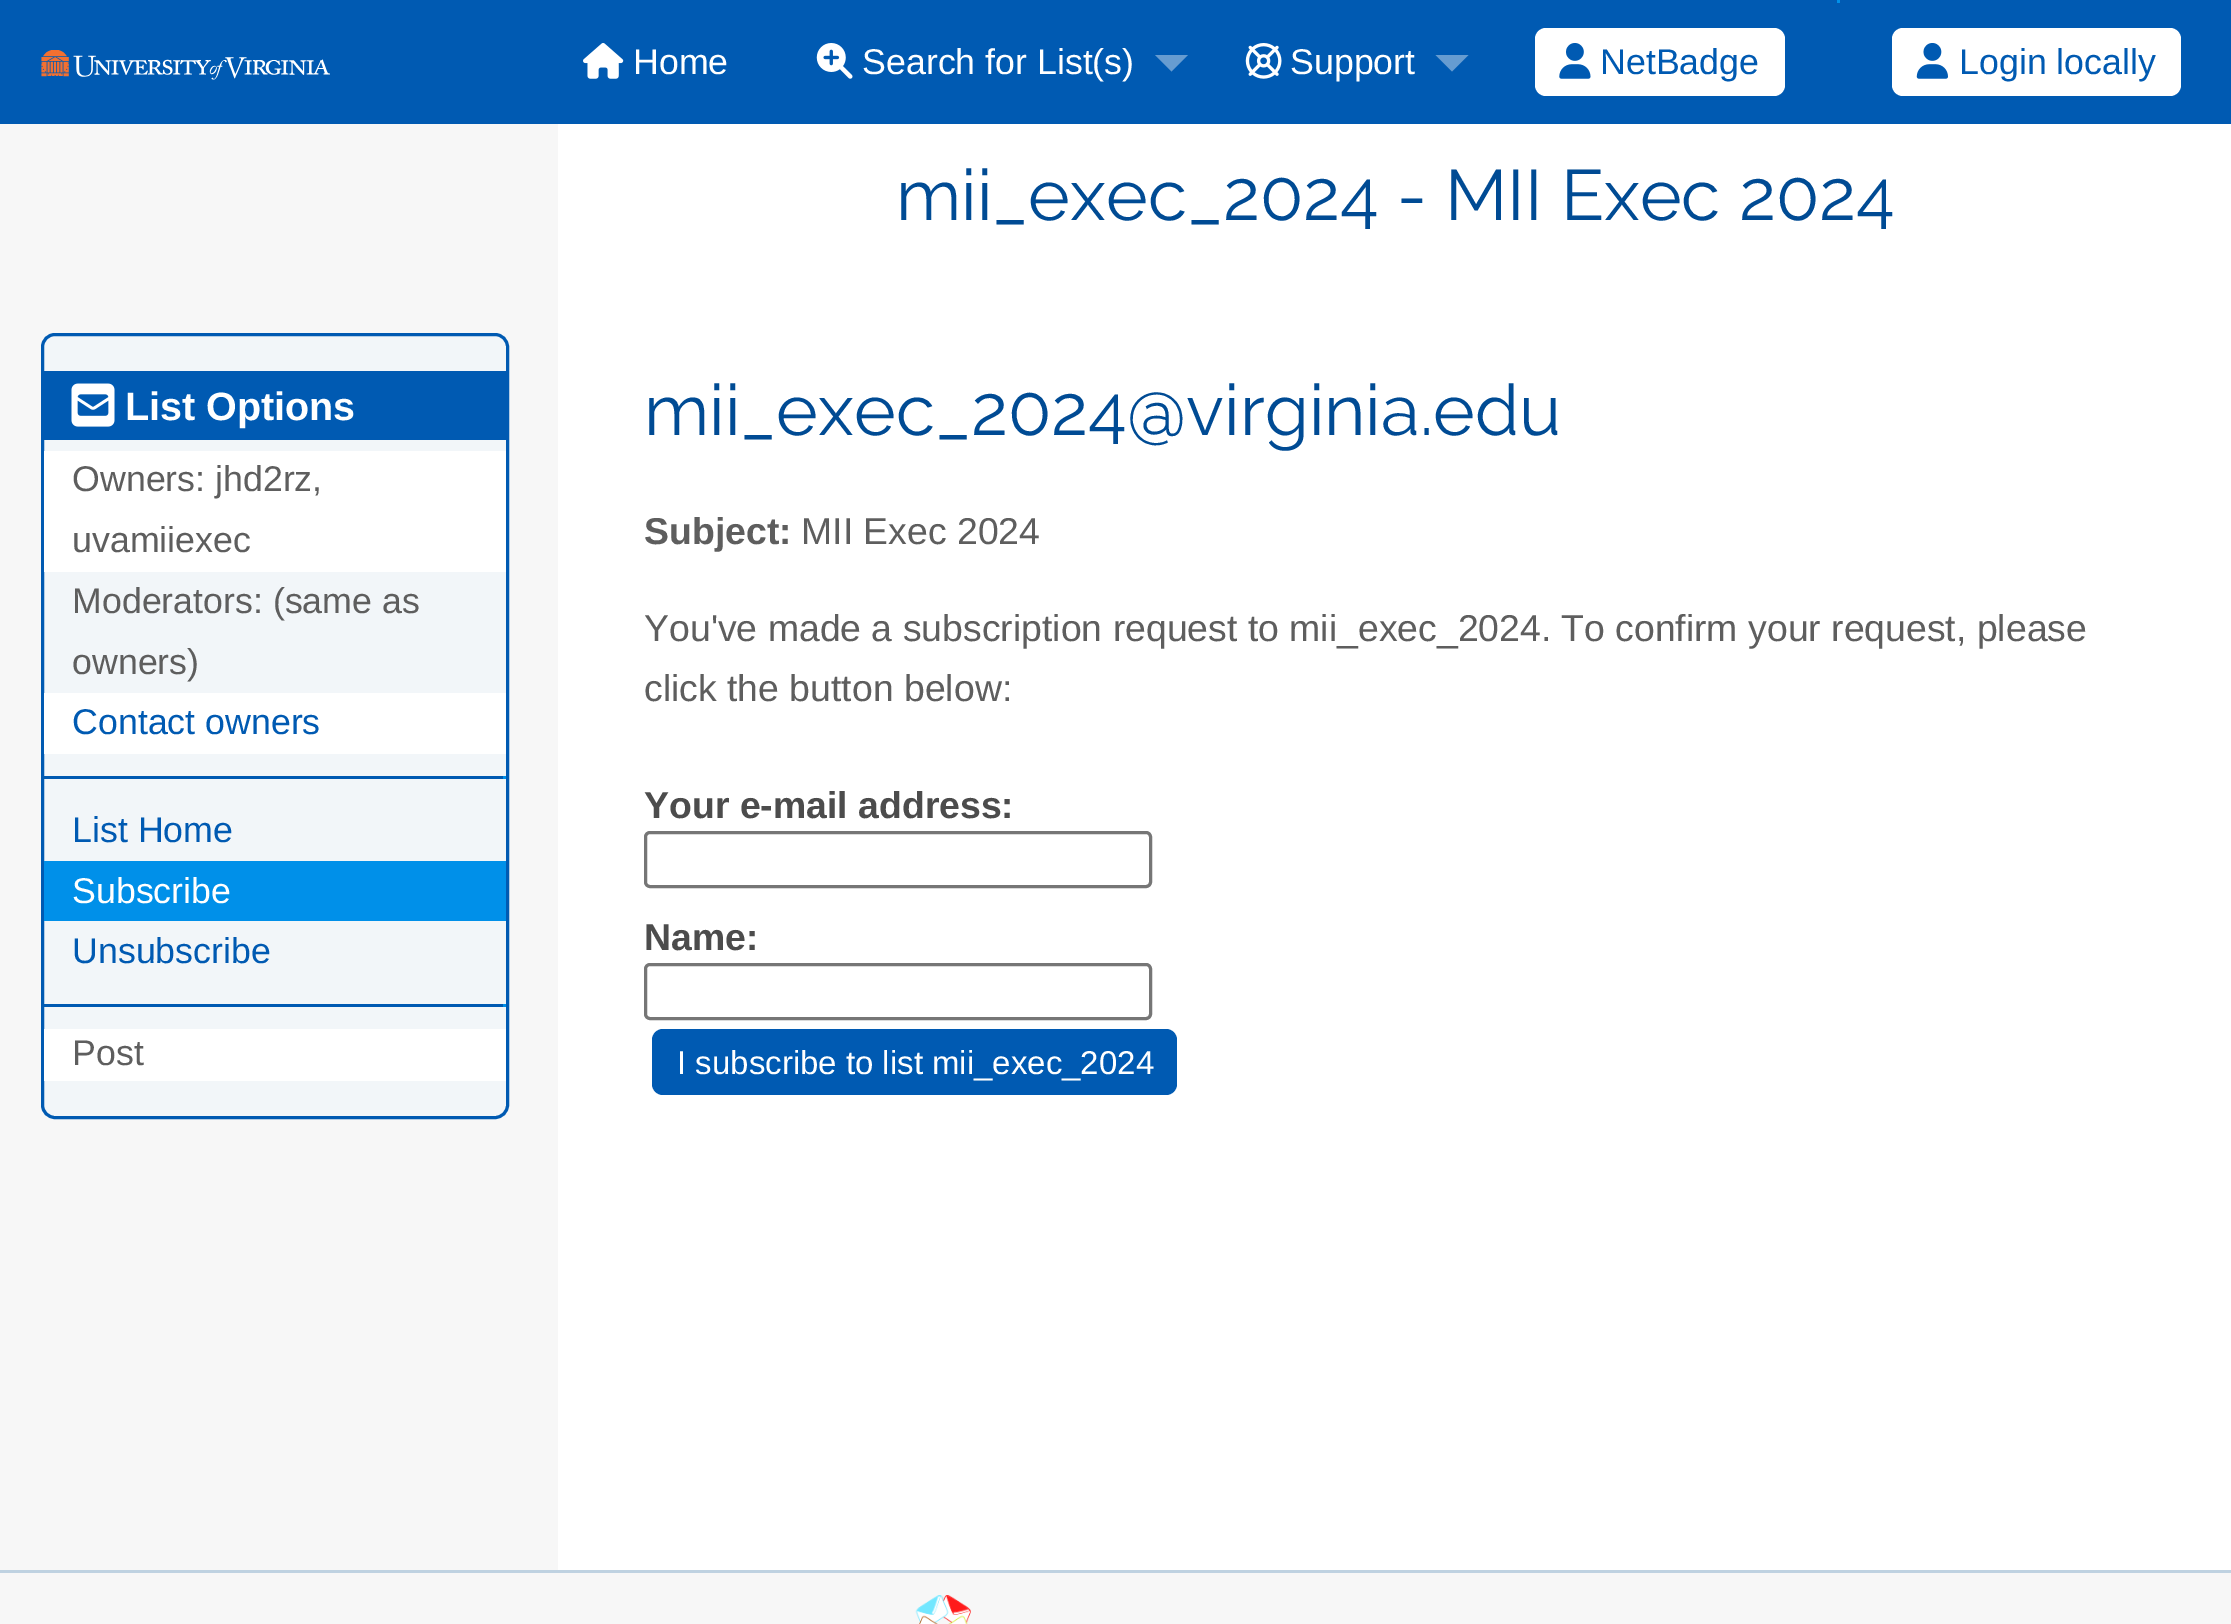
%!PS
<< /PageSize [2231 1624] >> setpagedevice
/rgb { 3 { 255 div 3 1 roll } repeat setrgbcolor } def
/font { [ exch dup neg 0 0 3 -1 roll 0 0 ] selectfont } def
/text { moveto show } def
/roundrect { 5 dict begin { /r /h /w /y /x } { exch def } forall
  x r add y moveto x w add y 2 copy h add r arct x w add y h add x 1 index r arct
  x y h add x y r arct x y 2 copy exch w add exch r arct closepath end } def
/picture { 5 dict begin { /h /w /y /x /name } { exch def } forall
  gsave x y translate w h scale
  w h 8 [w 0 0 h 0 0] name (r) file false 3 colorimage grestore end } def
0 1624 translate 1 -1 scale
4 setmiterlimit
247 247 247 rgb
0 0 2231 1624 rectfill
0 90 178 rgb
0 0 2231 124 rectfill
(img_01.rgb) 41 50 289 30 picture
0 144 233 rgb
1837 0 3 3 rectfill
(img_02.rgb) 583 43 41 36 picture
(img_03.rgb) 816 43 37 36 picture
102 156 209 rgb
1155 55 moveto 33 0 rlineto -16.5 16.5 rlineto closepath fill
(img_04.rgb) 1245 43 37 36 picture
1435.5 55 moveto 33 0 rlineto -16.5 16.5 rlineto closepath fill
255 255 255 rgb
1535 28 250 68 11 roundrect fill
(img_05.rgb) 1559 43 32 36 picture
1892 28 289 68 11 roundrect fill
(img_06.rgb) 1916 43 32 36 picture
558 124 1673 1446 rectfill
242 246 249 rgb
42.5 334.5 465 783 12.5 roundrect gsave fill grestore
0 90 178 rgb
3 setlinewidth
stroke
44 371 462 69 rectfill
(img_07.rgb) 71 383 44 44 picture
255 255 255 rgb
44 451 462 121 rectfill
44 693 462 61 rectfill
0 90 178 rgb
44 776 462 3 rectfill
0 144 233 rgb
503 776 3 3 rectfill
44 861 462 60 rectfill
0 90 178 rgb
44 1004 462 3 rectfill
0 144 233 rgb
503 1004 3 3 rectfill
255 255 255 rgb
44 1029 462 52 rectfill
118 118 118 rgb
645.5 832.5 505 54 4.5 roundrect stroke
645.5 964.5 505 54 4.5 roundrect stroke
0 90 178 rgb
652 1029 525 66 11 roundrect fill
191 210 225 rgb
0 1570 2231 3 rectfill
(img_08.rgb) 915 1595 56 29 picture
/LiberationSans-Regular 35.75 font
255 255 255 rgb
(Home) 633 74 text
(Search for List\(s\)) 862 74 text
(Support) 1290 74 text
0 90 178 rgb
(NetBadge) 1600 74 text
(Login locally) 1959 74 text
/Raleway-Regular 71 font
0 75 148 rgb
(mii_exec_2024 - MII Exec 2024) 896 220 text
/LiberationSans-Bold 39.5 font
255 255 255 rgb
(List Options) 125 420 text
/LiberationSans-Regular 35.75 font
94 94 94 rgb
(Owners: jhd2rz,) 72 491 text
(uvamiiexec) 72 552 text
(Moderators: \(same as) 72 613 text
(owners\)) 72 674 text
0 90 178 rgb
(Contact owners) 72 734 text
(List Home) 72 842 text
255 255 255 rgb
(Subscribe) 72 903 text
0 90 178 rgb
(Unsubscribe) 72 963 text
94 94 94 rgb
(Post) 72 1065 text
/Raleway-Regular 71 font
0 75 148 rgb
(mii_exec_2024@virginia.edu) 644 435 text
/LiberationSans-Bold 37.4 font
94 94 94 rgb
(Subject:) 644 544 text
/LiberationSans-Regular 37.4 font
(MII Exec 2024) 801 544 text
(You've made a subscription request to mii_exec_2024.) 644 641 text
(To confirm your request, please) 1561 641 text
(click the button below:) 644 701 text
/LiberationSans-Bold 37.4 font
76 76 76 rgb
(Your e-mail address:) 644 818 text
(Name:) 644 950 text
/LiberationSans-Regular 33 font
255 255 255 rgb
(I subscribe to list mii_exec_2024) 677 1074 text
showpage
